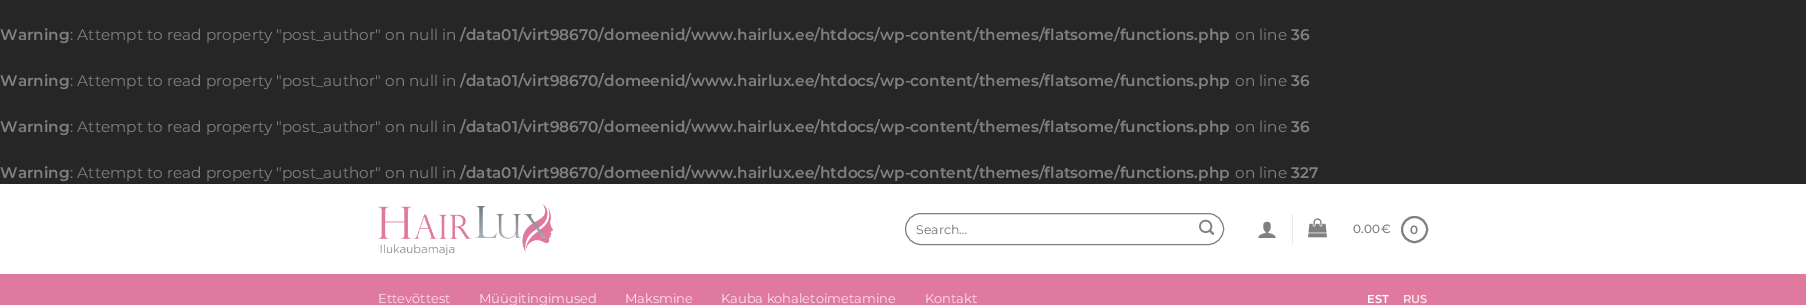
%!PS
<< /PageSize [1806 305] >> setpagedevice
/rgb { 3 { 255 div 3 1 roll } repeat setrgbcolor } def
/font { [ exch dup neg 0 0 3 -1 roll 0 0 ] selectfont } def
/text { moveto show } def
/circle { newpath 0 360 arc closepath } def
/roundrect { 5 dict begin { /r /h /w /y /x } { exch def } forall
  x r add y moveto x w add y 2 copy h add r arct x w add y h add x 1 index r arct
  x y h add x y r arct x y 2 copy exch w add exch r arct closepath end } def
/picture { 5 dict begin { /h /w /y /x /name } { exch def } forall
  gsave x y translate w h scale
  w h 8 [w 0 0 h 0 0] name (r) file false 3 colorimage grestore end } def
0 305 translate 1 -1 scale
4 setmiterlimit
38 38 38 rgb
0 0 1806 305 rectfill
255 255 255 rgb
0 184 1806 90 rectfill
(img_01.rgb) 378 204 175 51 picture
128 128 128 rgb
905.5 213.5 318 31 15.5 roundrect stroke
(img_02.rgb) 1199 219 16 16 picture
(img_03.rgb) 1258 221 18 17 picture
232 232 232 rgb
1292 214 1 30 rectfill
(img_04.rgb) 1308 218 19 20 picture
128 128 128 rgb
2 setlinewidth
1414.5 229.5 12.5 circle stroke
224 121 158 rgb
0 274 1806 31 rectfill
/Montserrat-SemiBold 15.35 font
128 128 128 rgb
(Warning) 0 40 text
/Montserrat-Regular 15.35 font
(: Attempt to read property "post_author" on null in) 70 40 text
/Montserrat-SemiBold 15.35 font
(/data01/virt98670/domeenid/www.hairlux.ee/htdocs/wp-content/themes/flatsome/functions.php) 460 40 text
/Montserrat-Regular 15.35 font
(on line) 1235 40 text
/Montserrat-SemiBold 15.35 font
(36) 1291 40 text
(Warning) 0 86 text
/Montserrat-Regular 15.35 font
(: Attempt to read property "post_author" on null in) 70 86 text
/Montserrat-SemiBold 15.35 font
(/data01/virt98670/domeenid/www.hairlux.ee/htdocs/wp-content/themes/flatsome/functions.php) 460 86 text
/Montserrat-Regular 15.35 font
(on line) 1235 86 text
/Montserrat-SemiBold 15.35 font
(36) 1291 86 text
(Warning) 0 132 text
/Montserrat-Regular 15.35 font
(: Attempt to read property "post_author" on null in) 70 132 text
/Montserrat-SemiBold 15.35 font
(/data01/virt98670/domeenid/www.hairlux.ee/htdocs/wp-content/themes/flatsome/functions.php) 460 132 text
/Montserrat-Regular 15.35 font
(on line) 1235 132 text
/Montserrat-SemiBold 15.35 font
(36) 1291 132 text
(Warning) 0 178 text
/Montserrat-Regular 15.35 font
(: Attempt to read property "post_author" on null in) 70 178 text
/Montserrat-SemiBold 15.35 font
(/data01/virt98670/domeenid/www.hairlux.ee/htdocs/wp-content/themes/flatsome/functions.php) 460 178 text
/Montserrat-Regular 15.35 font
(on line) 1235 178 text
/Montserrat-SemiBold 15.35 font
(327) 1291 178 text
/Montserrat-Regular 12.5 font
117 117 117 rgb
(Search…) 916 234 text
/Montserrat-Thin 12 font
128 128 128 rgb
1353 233 moveto 0.25 0 (0.00€) ashow
/Montserrat-SemiBold 12 font
1410 234 moveto 0.25 0 (0) ashow
/Montserrat-Regular 13 font
249 228 236 rgb
(Ettevõttest) 378 303 text
(Müügitingimused) 479 303 text
(Maksmine) 625 303 text
(Kauba kohaletoimetamine) 721 303 text
(Kontakt) 925 303 text
/Montserrat-SemiBold 11.5 font
255 255 255 rgb
(EST) 1367 303 text
249 228 236 rgb
(RUS) 1403 303 text
showpage
